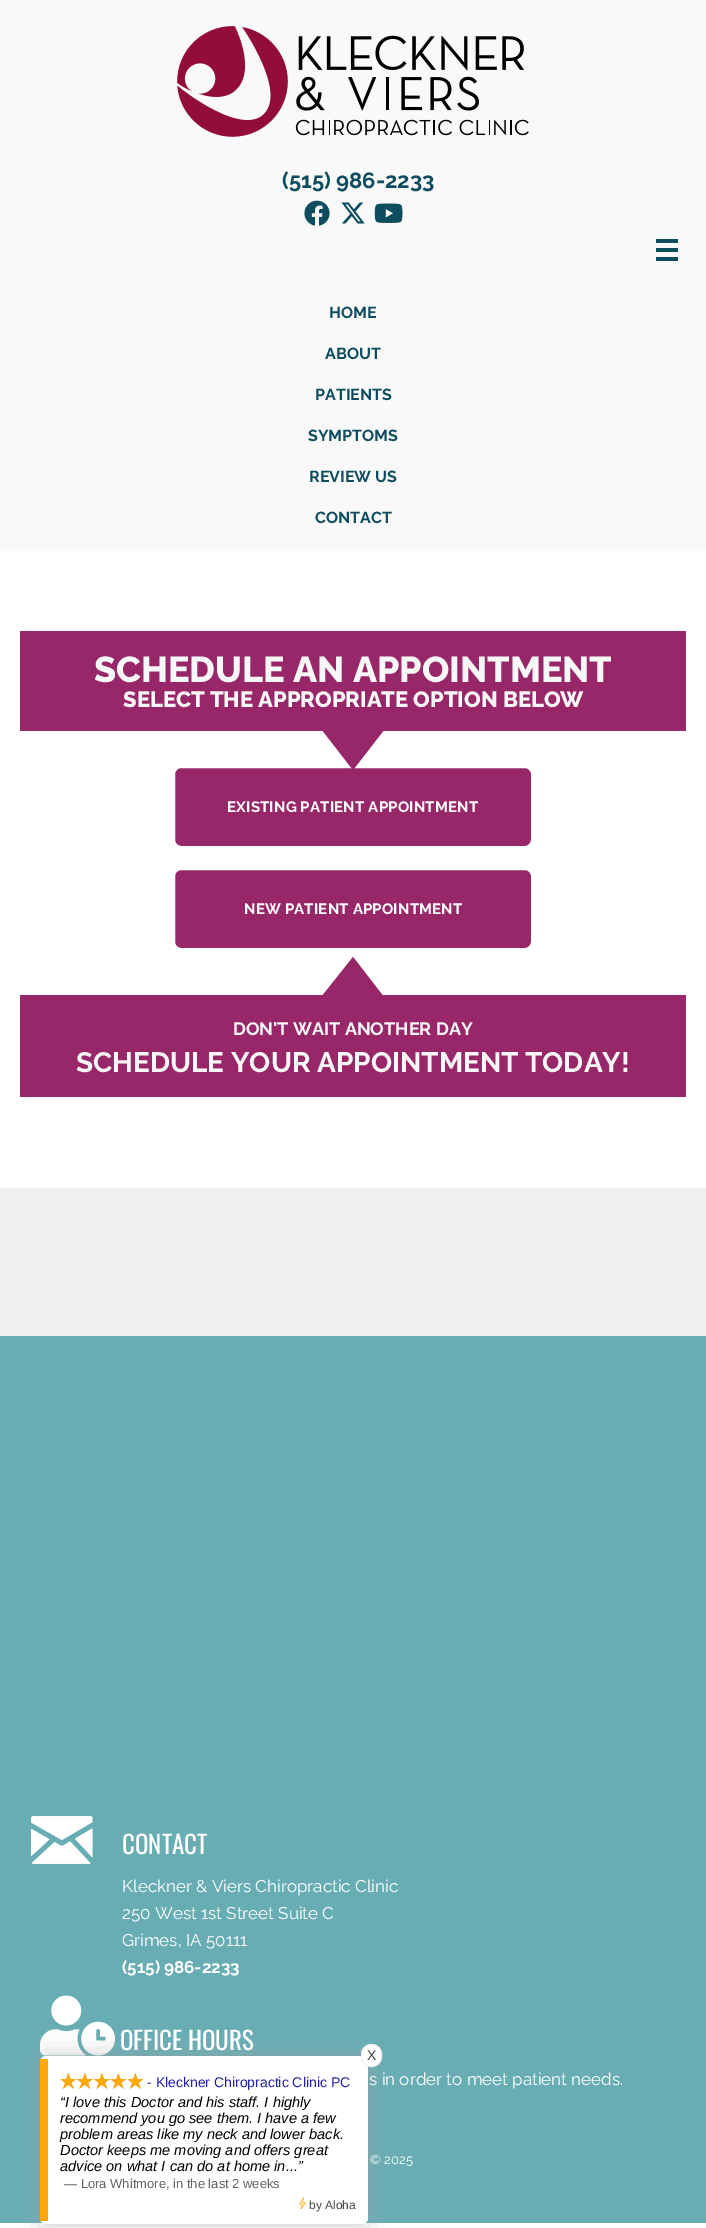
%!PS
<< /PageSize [706 2228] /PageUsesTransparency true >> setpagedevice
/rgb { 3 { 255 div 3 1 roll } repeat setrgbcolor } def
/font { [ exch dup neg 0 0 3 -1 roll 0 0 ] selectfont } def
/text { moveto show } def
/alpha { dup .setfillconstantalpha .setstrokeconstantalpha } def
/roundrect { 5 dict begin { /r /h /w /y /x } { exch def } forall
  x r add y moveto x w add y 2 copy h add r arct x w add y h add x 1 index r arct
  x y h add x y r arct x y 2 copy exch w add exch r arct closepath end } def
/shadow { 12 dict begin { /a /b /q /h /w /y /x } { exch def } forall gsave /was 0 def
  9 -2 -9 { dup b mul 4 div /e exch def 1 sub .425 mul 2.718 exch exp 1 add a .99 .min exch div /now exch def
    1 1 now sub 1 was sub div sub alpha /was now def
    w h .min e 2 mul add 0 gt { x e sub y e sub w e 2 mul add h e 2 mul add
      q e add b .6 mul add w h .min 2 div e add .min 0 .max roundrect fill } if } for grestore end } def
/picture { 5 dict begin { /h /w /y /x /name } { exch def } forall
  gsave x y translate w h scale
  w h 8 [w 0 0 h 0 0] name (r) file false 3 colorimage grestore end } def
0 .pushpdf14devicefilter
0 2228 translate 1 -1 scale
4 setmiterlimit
255 255 255 rgb
0 0 706 2228 rectfill
249 249 249 rgb
0 0 706 551 rectfill
(img_01.rgb) 177 26 352 111 picture
(img_02.rgb) 304 200 26 26 picture
(img_03.rgb) 341 202 24 22 picture
(img_04.rgb) 374 203 29 20 picture
14 77 94 rgb
656 239 22 4 rectfill
656 248 22 4 rectfill
656 257 22 4 rectfill
152 39 105 rgb
20 631 666 100 rectfill
174 767 358 80 7 roundrect gsave fill grestore
255 255 255 rgb
2 setlinewidth
stroke
152 39 105 rgb
384 730 moveto -31 40 rlineto -31 -40 rlineto 31 0 rlineto closepath fill
174 869 358 80 7 roundrect gsave fill grestore
255 255 255 rgb
stroke
152 39 105 rgb
20 995 666 102 rectfill
gsave
0 956 706 40 rectclip
384 997 moveto -31 -40 rlineto -31 39 rlineto 31 1 rlineto closepath fill
grestore
239 239 239 rgb
0 1188 706 148 rectfill
104 173 180 rgb
0 1336 706 887 rectfill
(img_05.rgb) 31 1816 62 48 picture
(img_06.rgb) 40 1995 75 61 picture
160 160 160 rgb
40 2056 328 168 6 12 0.6 shadow
255 255 255 rgb
40 2056 328 168 6 roundrect fill
255 168 8 rgb
40 2059 8 162 rectfill
255 255 255 rgb
361.5 2044.5 20 22 9.5 roundrect gsave fill grestore
238 238 238 rgb
1 setlinewidth
stroke
(img_07.rgb) 60 2073 83 16 picture
(img_08.rgb) 60 2073 83 16 picture
(img_09.rgb) 299 2197 7 12 picture
/Raleway-Bold 22 font
14 77 94 rgb
(\(515\) 986-2233) 282 188 text
/Raleway-Bold 16 font
(HOME) 329 318 text
(ABOUT) 325 359 text
(PATIENTS) 315 400 text
(SYMPTOMS) 308 441 text
(REVIEW US) 309 482 text
(CONTACT) 315 523 text
/Raleway-ExtraBold 36 font
247 247 247 rgb
(SCHEDULE AN APPOINTMENT) 94 682 text
/Raleway-ExtraBold 22 font
(SELECT THE APPROPRIATE OPTION BELOW) 123 707 text
/Raleway-Bold 15 font
255 255 255 rgb
227 812 moveto 0.2 0 (EXISTING PATIENT APPOINTMENT) ashow
244 914 moveto 0.2 0 (NEW PATIENT APPOINTMENT) ashow
/Raleway-Bold 18 font
247 247 247 rgb
(DON'T WAIT ANOTHER DAY) 233 1035 text
/Raleway-Bold 28 font
(SCHEDULE YOUR APPOINTMENT TODAY!) 76 1072 text
/Oswald-Regular 25 font
255 255 255 rgb
(CONTACT) 122 1854 text
/Raleway-Regular 17 font
(Kleckner & Viers Chiropractic Clinic) 122 1892 text
(250 West 1st Street Suite C) 122 1919 text
(Grimes, IA 50111) 122 1946 text
/Raleway-Bold 17 font
(\(515\) 986-2233) 122 1973 text
/Oswald-Regular 25 font
(OFFICE HOURS) 120 2050 text
/Raleway-Regular 17 font
(s in order to meet patient needs.) 369 2085 text
/Raleway-Regular 13 font
(© 2025) 370 2164 text
/LiberationSans-Regular 14 font
66 66 66 rgb
(X) 367 2060 text
32 32 170 rgb
(- Kleckner Chiropractic Clinic PC) 147 2087 text
/LiberationSans-Italic 14.6 font
0 0 0 rgb
(“I love this Doctor and his staff. I highly) 60 2107 text
(recommend you go see them. I have a few) 60 2123 text
(problem areas like my neck and lower back.) 60 2139 text
(Doctor keeps me moving and offers great) 60 2155 text
(advice on what I can do at home in...”) 60 2171 text
/LiberationSans-Regular 13 font
100 100 100 rgb
(— Lora Whitmore, in the last 2 weeks) 64 2188 text
/LiberationSans-Regular 12 font
66 66 66 rgb
(by Aloha) 309 2209 text
.poppdf14devicefilter showpage
